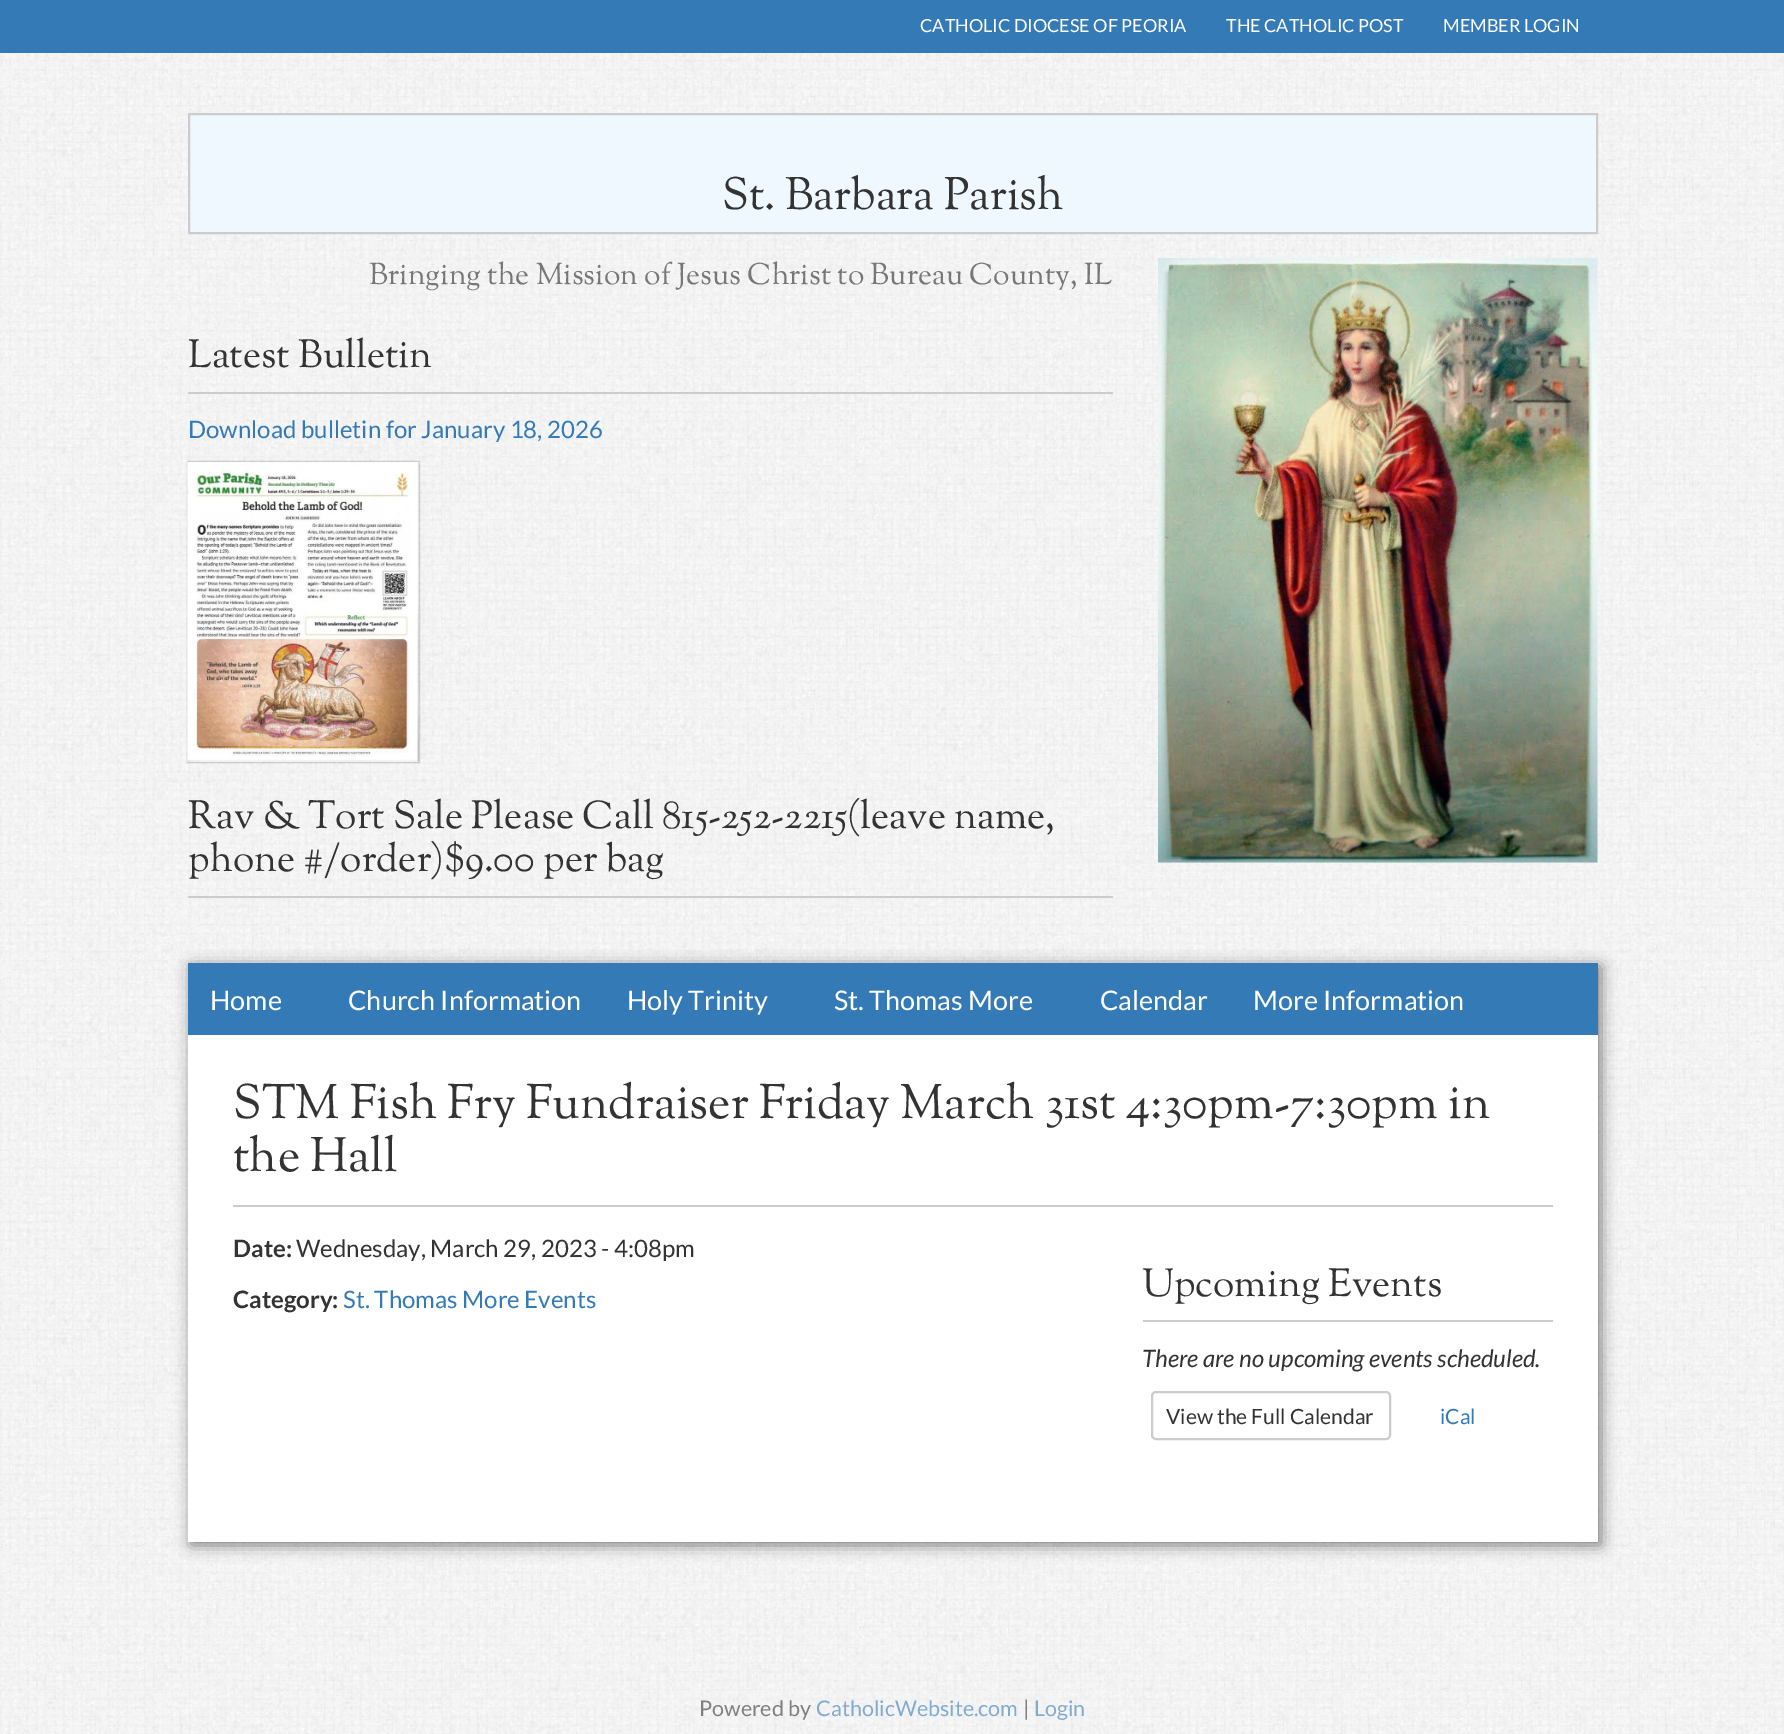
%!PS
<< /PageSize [1784 1734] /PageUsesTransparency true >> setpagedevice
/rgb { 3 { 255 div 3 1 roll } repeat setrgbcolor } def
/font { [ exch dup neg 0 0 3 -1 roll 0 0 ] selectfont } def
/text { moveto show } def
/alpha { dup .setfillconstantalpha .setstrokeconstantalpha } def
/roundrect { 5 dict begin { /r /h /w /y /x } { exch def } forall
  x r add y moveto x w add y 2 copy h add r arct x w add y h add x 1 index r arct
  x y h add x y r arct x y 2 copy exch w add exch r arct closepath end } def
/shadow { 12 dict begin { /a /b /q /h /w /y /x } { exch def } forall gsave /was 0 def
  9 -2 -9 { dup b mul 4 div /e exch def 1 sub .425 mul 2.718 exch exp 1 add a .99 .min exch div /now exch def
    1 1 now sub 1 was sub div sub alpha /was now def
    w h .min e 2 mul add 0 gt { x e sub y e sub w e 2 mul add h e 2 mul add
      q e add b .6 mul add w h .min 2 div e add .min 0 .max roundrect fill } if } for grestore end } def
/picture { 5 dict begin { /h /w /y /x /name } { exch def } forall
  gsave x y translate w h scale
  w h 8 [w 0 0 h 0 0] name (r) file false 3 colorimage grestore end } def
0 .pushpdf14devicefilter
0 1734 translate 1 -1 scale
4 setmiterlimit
255 255 255 rgb
0 0 1784 1734 rectfill
(img_01.rgb) 0 53 1784 1681 picture
51 122 183 rgb
0 0 1784 53 rectfill
240 248 255 rgb
189 114 moveto 1408 0 rlineto 0 119 rlineto -1408 0 rlineto closepath gsave fill grestore
204 204 204 rgb
2 setlinewidth
stroke
188 392 925 2 rectfill
0 0 0 rgb
188 462 231 300 0 1 0.5 shadow
(img_02.rgb) 187 462 232 300 picture
204 204 204 rgb
188 896 925 2 rectfill
(img_03.rgb) 1158 258 440 605 picture
0 0 0 rgb
191 966 1410 579 0 7.5 0.5 shadow
255 255 255 rgb
188 1035 1410 507 rectfill
51 122 183 rgb
188 963 1410 72 rectfill
204 204 204 rgb
233 1205 1320 2 rectfill
1143 1320 410 2 rectfill
1152 1392 238 47 4 roundrect stroke
/Lato-Regular 18 font
255 255 255 rgb
(CATHOLIC DIOCESE OF PEORIA) 920 32 text
(THE CATHOLIC POST) 1226 32 text
(MEMBER LOGIN) 1443 32 text
/SortsMillGoudy-Regular 45 font
51 51 51 rgb
(St. Barbara Parish) 722 209 text
/SortsMillGoudy-Regular 30 font
119 119 119 rgb
(Bringing the Mission of Jesus Christ to Bureau County, IL) 369 284 text
/SortsMillGoudy-Regular 39 font
51 51 51 rgb
(Latest Bulletin) 188 367 text
/Lato-Regular 24 font
51 122 183 rgb
(Download bulletin for January 18, 2026) 188 438 text
/SortsMillGoudy-Regular 39 font
51 51 51 rgb
(Rav & Tort Sale Please Call 815-252-2215\(leave name,) 188 828 text
(phone #/order\)$9.00 per bag) 188 871 text
/Lato-Regular 27 font
255 255 255 rgb
(Home) 210 1010 text
(Church Information) 348 1010 text
(Holy Trinity) 627 1010 text
(St. Thomas More) 834 1010 text
(Calendar) 1100 1010 text
(More Information) 1253 1010 text
/SortsMillGoudy-Regular 48 font
51 51 51 rgb
(STM Fish Fry Fundraiser Friday March 31st 4:30pm-7:30pm in) 233 1118 text
(the Hall) 233 1171 text
/Lato-Bold 24 font
(Date:) 233 1257 text
/Lato-Regular 24 font
(Wednesday, March 29, 2023 - 4:08pm) 296 1257 text
/Lato-Bold 24 font
(Category:) 233 1308 text
/Lato-Regular 24 font
51 122 183 rgb
(St. Thomas More Events) 343 1308 text
/SortsMillGoudy-Regular 39 font
51 51 51 rgb
(Upcoming Events) 1142 1296 text
/Lato-Italic 24 font
(There are no upcoming events scheduled.) 1142 1367 text
/Lato-Regular 21 font
(View the Full Calendar) 1166 1424 text
51 122 183 rgb
(iCal) 1440 1424 text
/Lato-Regular 21.5 font
128 128 128 rgb
(Powered by) 699 1716 text
128 170 207 rgb
(CatholicWebsite.com) 816 1716 text
128 128 128 rgb
(|) 1023 1716 text
128 170 207 rgb
(Login) 1034 1716 text
.poppdf14devicefilter showpage
